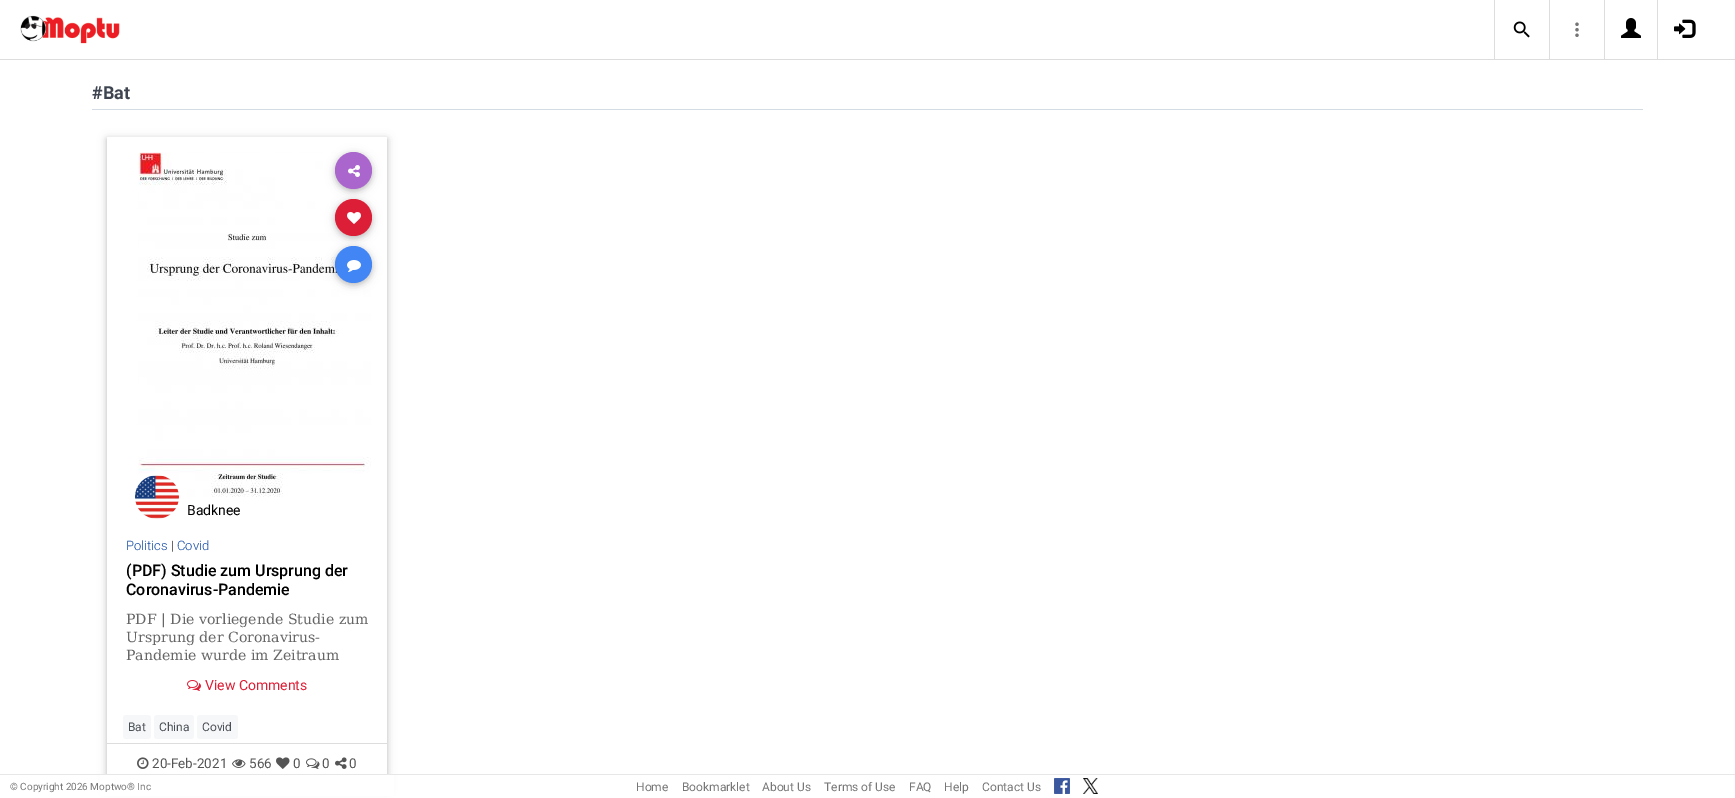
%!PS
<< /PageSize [1735 798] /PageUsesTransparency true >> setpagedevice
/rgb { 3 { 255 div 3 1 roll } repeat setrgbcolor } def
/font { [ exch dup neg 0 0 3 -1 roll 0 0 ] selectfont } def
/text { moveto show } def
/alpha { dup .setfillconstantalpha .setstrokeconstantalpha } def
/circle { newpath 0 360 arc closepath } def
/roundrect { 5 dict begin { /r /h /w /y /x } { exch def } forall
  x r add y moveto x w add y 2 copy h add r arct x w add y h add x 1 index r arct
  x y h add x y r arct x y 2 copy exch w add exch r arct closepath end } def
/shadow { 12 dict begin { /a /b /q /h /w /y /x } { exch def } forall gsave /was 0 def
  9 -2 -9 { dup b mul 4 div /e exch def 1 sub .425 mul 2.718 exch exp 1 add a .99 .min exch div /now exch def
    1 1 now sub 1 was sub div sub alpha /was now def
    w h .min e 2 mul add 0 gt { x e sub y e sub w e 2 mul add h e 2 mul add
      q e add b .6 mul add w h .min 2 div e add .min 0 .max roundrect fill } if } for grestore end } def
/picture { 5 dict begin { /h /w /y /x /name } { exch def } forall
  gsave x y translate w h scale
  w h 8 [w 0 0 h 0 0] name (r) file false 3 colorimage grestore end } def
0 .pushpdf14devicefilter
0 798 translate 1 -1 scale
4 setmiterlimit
255 255 255 rgb
0 0 1735 798 rectfill
221 221 221 rgb
0 59 1735 1 rectfill
(img_01.rgb) 20 15 100 29 picture
1494 0 1 59 rectfill
(img_02.rgb) 1513 21 17 17 picture
1549 0 1 59 rectfill
(img_03.rgb) 1575 22 4 15 picture
1604 0 1 59 rectfill
(img_04.rgb) 1621 18 20 20 picture
1657 0 1 59 rectfill
(img_05.rgb) 1674 19 22 19 picture
211 219 228 rgb
92 109 1551 1 rectfill
gsave
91 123 moveto 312 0 rlineto 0 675 rlineto -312 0 rlineto closepath 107 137 moveto 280 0 rlineto 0 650 rlineto -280 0 rlineto closepath eoclip newpath
0 0 0 rgb
107 139 280 650 0 5 0.12 shadow
grestore
gsave
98 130 moveto 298 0 rlineto 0 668 rlineto -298 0 rlineto closepath 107 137 moveto 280 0 rlineto 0 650 rlineto -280 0 rlineto closepath eoclip newpath
0 0 0 rgb
107 139 280 650 0 2.5 0.16 shadow
grestore
(img_09.rgb) 138 152 233 345 picture
0 0 0 rgb
335 154 37 37 18.5 5 0.12 shadow
335 154 37 37 18.5 2.5 0.16 shadow
170 102 204 rgb
353.5 170.5 18.5 circle fill
(img_06.rgb) 348 165 12 12 picture
0 0 0 rgb
335 201 37 37 18.5 5 0.12 shadow
335 201 37 37 18.5 2.5 0.16 shadow
220 30 54 rgb
353.5 217.5 18.5 circle fill
(img_07.rgb) 347 212 14 12 picture
0 0 0 rgb
335 248 37 37 18.5 5 0.12 shadow
335 248 37 37 18.5 2.5 0.16 shadow
66 133 244 rgb
353.5 264.5 18.5 circle fill
(img_08.rgb) 347 260 14 12 picture
255 255 255 rgb
157 497 25 circle fill
(img_10.rgb) 135 475 44 44 picture
(img_11.rgb) 187 680 14 11 picture
246 247 249 rgb
123 715 28 24 3 roundrect fill
154 715 40 24 3 roundrect fill
197 715 41 24 3 roundrect fill
221 221 221 rgb
107 743 280 1 rectfill
(img_12.rgb) 137 757 12 12 picture
(img_13.rgb) 232 759 14 9 picture
(img_14.rgb) 276 757 14 12 picture
(img_15.rgb) 306 758 14 11 picture
(img_16.rgb) 335 757 12 12 picture
255 255 255 rgb
100 775 294 21 rectfill
231 231 231 rgb
0 774 1735 1 rectfill
(img_17.rgb) 1054 778 16 16 picture
(img_18.rgb) 1083 778 15 16 picture
/Roboto-Bold 18 font
62 69 81 rgb
(#Bat) 92 99 text
/Roboto-Regular 14 font
0 0 0 rgb
(Badknee) 187 515 text
/Roboto-Light 13 font
13 71 161 rgb
(Politics) 126 550 text
51 51 51 rgb
(|) 171 550 text
13 71 161 rgb
(Covid) 177 550 text
/Roboto-Medium 16 font
0 0 0 rgb
(\(PDF\) Studie zum Ursprung der) 126 576 text
(Coronavirus-Pandemie) 126 595 text
/DejaVuSerif-Regular 14.1 font
102 102 102 rgb
(PDF | Die vorliegende Studie zum) 126 624 text
(Ursprung der Coronavirus-) 126 642 text
(Pandemie wurde im Zeitraum) 126 660 text
/Roboto-Regular 14 font
220 30 54 rgb
(View Comments) 205 690 text
/Roboto-Regular 12 font
75 79 86 rgb
(Bat) 128 731 text
(China) 159 731 text
(Covid) 202 731 text
/Roboto-Regular 13.5 font
85 85 85 rgb
(20-Feb-2021) 152 768 text
(566) 249 768 text
(0) 293 768 text
(0) 322 768 text
(0) 349 768 text
/Roboto-Regular 10 font
119 119 119 rgb
(© Copyright 2026 Moptwo® Inc) 10 790 text
/Roboto-Regular 12 font
(Home) 636 791 text
(Bookmarklet) 682 791 text
(About Us) 762 791 text
(Terms of Use) 824 791 text
(FAQ) 909 791 text
(Help) 944 791 text
(Contact Us) 982 791 text
.poppdf14devicefilter showpage
